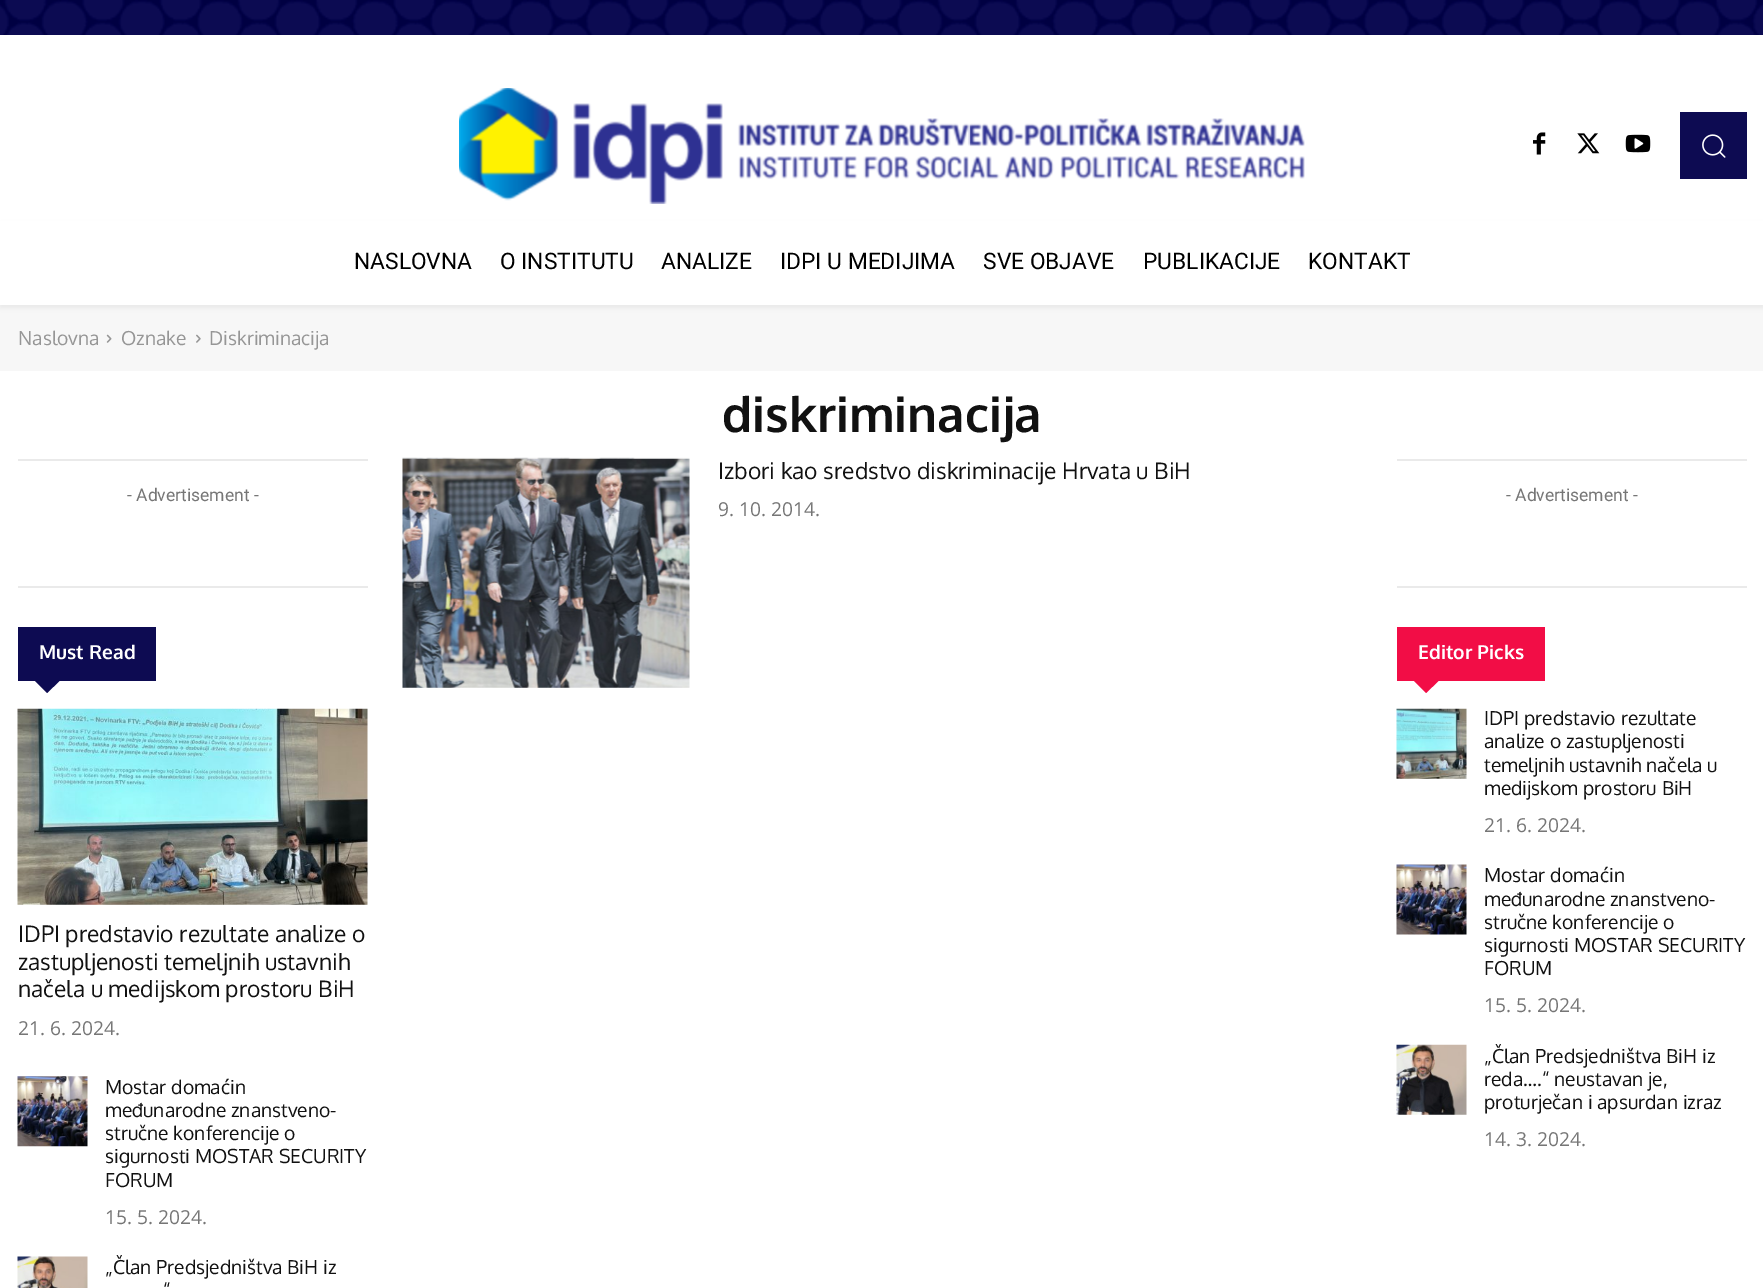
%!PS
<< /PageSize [1763 1288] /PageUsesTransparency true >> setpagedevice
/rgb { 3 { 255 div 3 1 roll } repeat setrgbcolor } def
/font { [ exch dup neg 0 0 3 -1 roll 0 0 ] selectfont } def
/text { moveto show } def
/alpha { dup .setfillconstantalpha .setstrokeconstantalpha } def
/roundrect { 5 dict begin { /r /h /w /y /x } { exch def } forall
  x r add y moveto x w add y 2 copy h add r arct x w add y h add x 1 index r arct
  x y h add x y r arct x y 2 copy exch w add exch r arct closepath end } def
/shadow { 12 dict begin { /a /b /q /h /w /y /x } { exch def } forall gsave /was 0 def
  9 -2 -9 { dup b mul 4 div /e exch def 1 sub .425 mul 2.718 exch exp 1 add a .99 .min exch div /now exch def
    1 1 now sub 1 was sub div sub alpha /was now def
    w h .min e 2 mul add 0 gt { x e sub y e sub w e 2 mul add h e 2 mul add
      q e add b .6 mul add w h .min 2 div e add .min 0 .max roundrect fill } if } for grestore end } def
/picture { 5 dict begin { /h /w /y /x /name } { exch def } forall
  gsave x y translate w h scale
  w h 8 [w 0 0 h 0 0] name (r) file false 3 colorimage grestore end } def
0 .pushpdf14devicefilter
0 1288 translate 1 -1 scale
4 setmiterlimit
255 255 255 rgb
0 0 1763 1288 rectfill
(img_01.rgb) 0 0 1763 35 picture
(img_02.rgb) 459 88 846 116 picture
(img_03.rgb) 1533 132 13 23 picture
(img_04.rgb) 1577 133 23 21 picture
(img_05.rgb) 1625 134 26 19 picture
13 11 82 rgb
1680 112 67 67 rectfill
(img_06.rgb) 1702 134 24 24 picture
247 247 247 rgb
0 305 1763 66 rectfill
gsave
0 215 moveto 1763 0 rlineto 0 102 rlineto -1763 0 rlineto closepath 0 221 moveto 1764 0 rlineto 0 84 rlineto -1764 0 rlineto closepath eoclip newpath
0 0 0 rgb
0 224 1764 84 0 2.5 0.05 shadow
grestore
(img_07.rgb) 106 334 6 9 picture
(img_08.rgb) 196 334 5 9 picture
234 234 234 rgb
18 459 350 2 rectfill
18 586 350 2 rectfill
13 11 82 rgb
18 627 138 54 rectfill
35 681 moveto 24.5 0 rlineto -12.5 12 rlineto closepath fill
(img_09.rgb) 17 708 351 197 picture
(img_10.rgb) 17 1076 71 71 picture
(img_11.rgb) 17 1256 71 32 picture
(img_12.rgb) 402 457 288 231 picture
234 234 234 rgb
1397 459 350 2 rectfill
1397 586 350 2 rectfill
242 13 70 rgb
1397 627 148 54 rectfill
1414 681 moveto 24.5 0 rlineto -12.5 12 rlineto closepath fill
(img_13.rgb) 1396 708 71 71 picture
(img_14.rgb) 1396 864 71 71 picture
(img_15.rgb) 1396 1044 71 71 picture
/Roboto-Regular 22.75 font
0 0 0 rgb
(NASLOVNA) 354 269 text
(O INSTITUTU) 500 269 text
(ANALIZE) 661 269 text
(IDPI U MEDIJIMA) 780 269 text
(SVE OBJAVE) 983 269 text
(PUBLIKACIJE) 1143 269 text
(KONTAKT) 1308 269 text
/Oxygen-Regular 19.25 font
150 150 150 rgb
(Naslovna) 18 345 text
(Oznake) 121 345 text
(Diskriminacija) 209 345 text
/Oxygen-Bold 49 font
17 17 17 rgb
(diskriminacija) 722 432 text
/Roboto-Regular 17.5 font
118 118 118 rgb
(- Advertisement -) 127 501 text
/Oxygen-Bold 19.25 font
255 255 255 rgb
(Must Read) 39 659 text
/Oxygen-Regular 22.75 font
17 17 17 rgb
(IDPI predstavio rezultate analize o) 18 942 text
(zastupljenosti temeljnih ustavnih) 18 970 text
(načela u medijskom prostoru BiH) 18 997 text
/OpenSans-Regular 19.25 font
118 118 118 rgb
(21. 6. 2024.) 18 1035 text
/Oxygen-Regular 19.25 font
17 17 17 rgb
(Mostar domaćin) 105 1094 text
(međunarodne znanstveno-) 105 1117 text
(stručne konferencije o) 105 1140 text
(sigurnosti MOSTAR SECURITY) 105 1163 text
(FORUM) 105 1187 text
/OpenSans-Regular 19.25 font
118 118 118 rgb
(15. 5. 2024.) 105 1224 text
/Oxygen-Regular 19.25 font
17 17 17 rgb
(„Član Predsjedništva BiH iz) 105 1274 text
(“) 163 1297 text
/Oxygen-Regular 22.75 font
(Izbori kao sredstvo diskriminacije Hrvata u BiH) 718 479 text
/OpenSans-Regular 19.25 font
118 118 118 rgb
(9. 10. 2014.) 718 516 text
/Roboto-Regular 17.5 font
(- Advertisement -) 1506 501 text
/Oxygen-Bold 19.25 font
255 255 255 rgb
(Editor Picks) 1418 659 text
/Oxygen-Regular 19.25 font
17 17 17 rgb
(IDPI predstavio rezultate) 1484 725 text
(analize o zastupljenosti) 1484 748 text
(temeljnih ustavnih načela u) 1484 772 text
(medijskom prostoru BiH) 1484 795 text
/OpenSans-Regular 19.25 font
118 118 118 rgb
(21. 6. 2024.) 1484 832 text
/Oxygen-Regular 19.25 font
17 17 17 rgb
(Mostar domaćin) 1484 882 text
(međunarodne znanstveno-) 1484 906 text
(stručne konferencije o) 1484 929 text
(sigurnosti MOSTAR SECURITY) 1484 952 text
(FORUM) 1484 975 text
/OpenSans-Regular 19.25 font
118 118 118 rgb
(15. 5. 2024.) 1484 1012 text
/Oxygen-Regular 19.25 font
17 17 17 rgb
(„Član Predsjedništva BiH iz) 1484 1063 text
(reda….“ neustavan je,) 1484 1086 text
(proturječan i apsurdan izraz) 1484 1109 text
/OpenSans-Regular 19.25 font
118 118 118 rgb
(14. 3. 2024.) 1484 1146 text
.poppdf14devicefilter showpage
